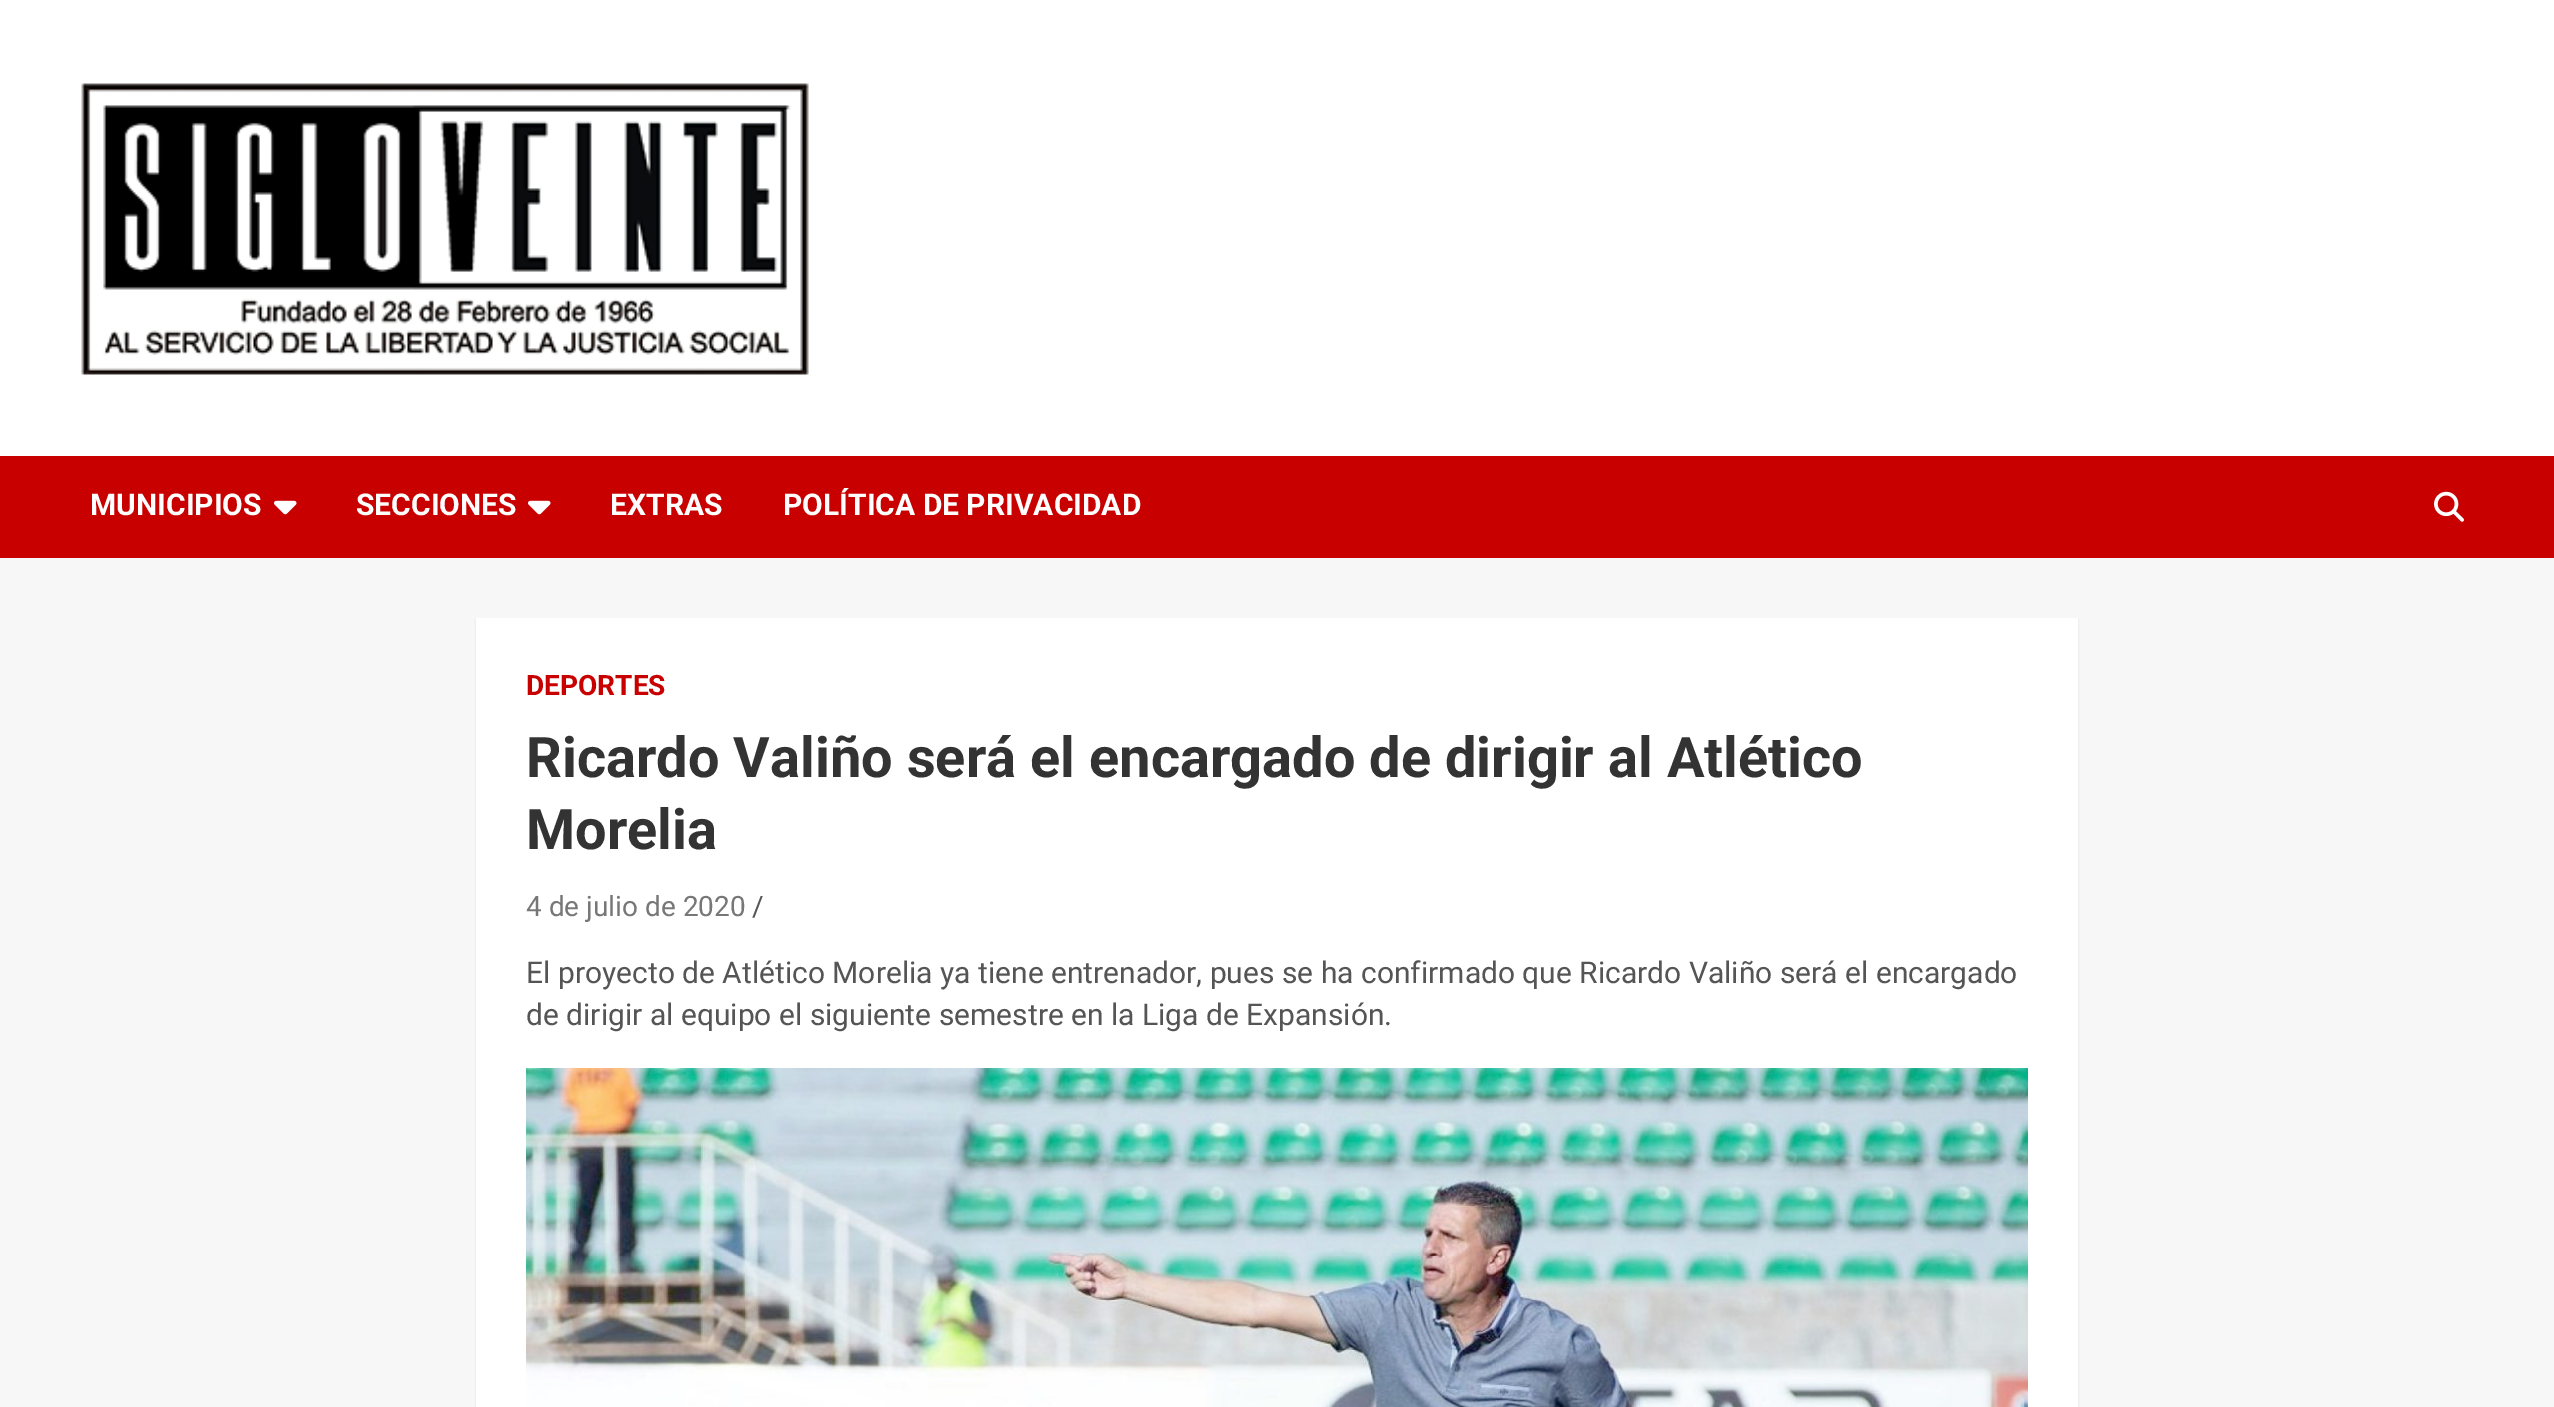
%!PS
<< /PageSize [2554 1407] /PageUsesTransparency true >> setpagedevice
/rgb { 3 { 255 div 3 1 roll } repeat setrgbcolor } def
/font { [ exch dup neg 0 0 3 -1 roll 0 0 ] selectfont } def
/text { moveto show } def
/alpha { dup .setfillconstantalpha .setstrokeconstantalpha } def
/roundrect { 5 dict begin { /r /h /w /y /x } { exch def } forall
  x r add y moveto x w add y 2 copy h add r arct x w add y h add x 1 index r arct
  x y h add x y r arct x y 2 copy exch w add exch r arct closepath end } def
/shadow { 12 dict begin { /a /b /q /h /w /y /x } { exch def } forall gsave /was 0 def
  9 -2 -9 { dup b mul 4 div /e exch def 1 sub .425 mul 2.718 exch exp 1 add a .99 .min exch div /now exch def
    1 1 now sub 1 was sub div sub alpha /was now def
    w h .min e 2 mul add 0 gt { x e sub y e sub w e 2 mul add h e 2 mul add
      q e add b .6 mul add w h .min 2 div e add .min 0 .max roundrect fill } if } for grestore end } def
/picture { 5 dict begin { /h /w /y /x /name } { exch def } forall
  gsave x y translate w h scale
  w h 8 [w 0 0 h 0 0] name (r) file false 3 colorimage grestore end } def
0 .pushpdf14devicefilter
0 1407 translate 1 -1 scale
4 setmiterlimit
247 247 247 rgb
0 0 2554 1407 rectfill
255 255 255 rgb
0 0 2554 456 rectfill
(img_01.rgb) 81 83 728 292 picture
200 0 0 rgb
0 456 2554 102 rectfill
(img_02.rgb) 274 500 23 15 picture
(img_02.rgb) 528 500 23 15 picture
(img_03.rgb) 2434 491 30 31 picture
0 0 0 rgb
476 620 1602 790 0 1 0.1 shadow
255 255 255 rgb
476 618 1602 789 rectfill
(img_04.rgb) 526 1068 1502 339 picture
/Roboto-Bold 30 font
(MUNICIPIOS) 90 515 text
(SECCIONES) 356 515 text
(EXTRAS) 610 515 text
(POLÍTICA DE PRIVACIDAD) 783 515 text
/Roboto-Bold 28 font
200 0 0 rgb
(DEPORTES) 526 695 text
/Roboto-Bold 56 font
51 51 51 rgb
(Ricardo Valiño será el encargado de dirigir al Atlético) 526 777 text
(Morelia) 526 849 text
/Roboto-Regular 28 font
119 119 119 rgb
(4 de julio de 2020) 526 916 text
85 85 85 rgb
(/) 752 916 text
/Roboto-Regular 30 font
(El proyecto de Atlético Morelia ya tiene entrenador, pues se ha confirmado que Ricardo Valiño será el encargado) 526 983 text
(de dirigir al equipo el siguiente semestre en la Liga de Expansión.) 526 1025 text
.poppdf14devicefilter showpage
